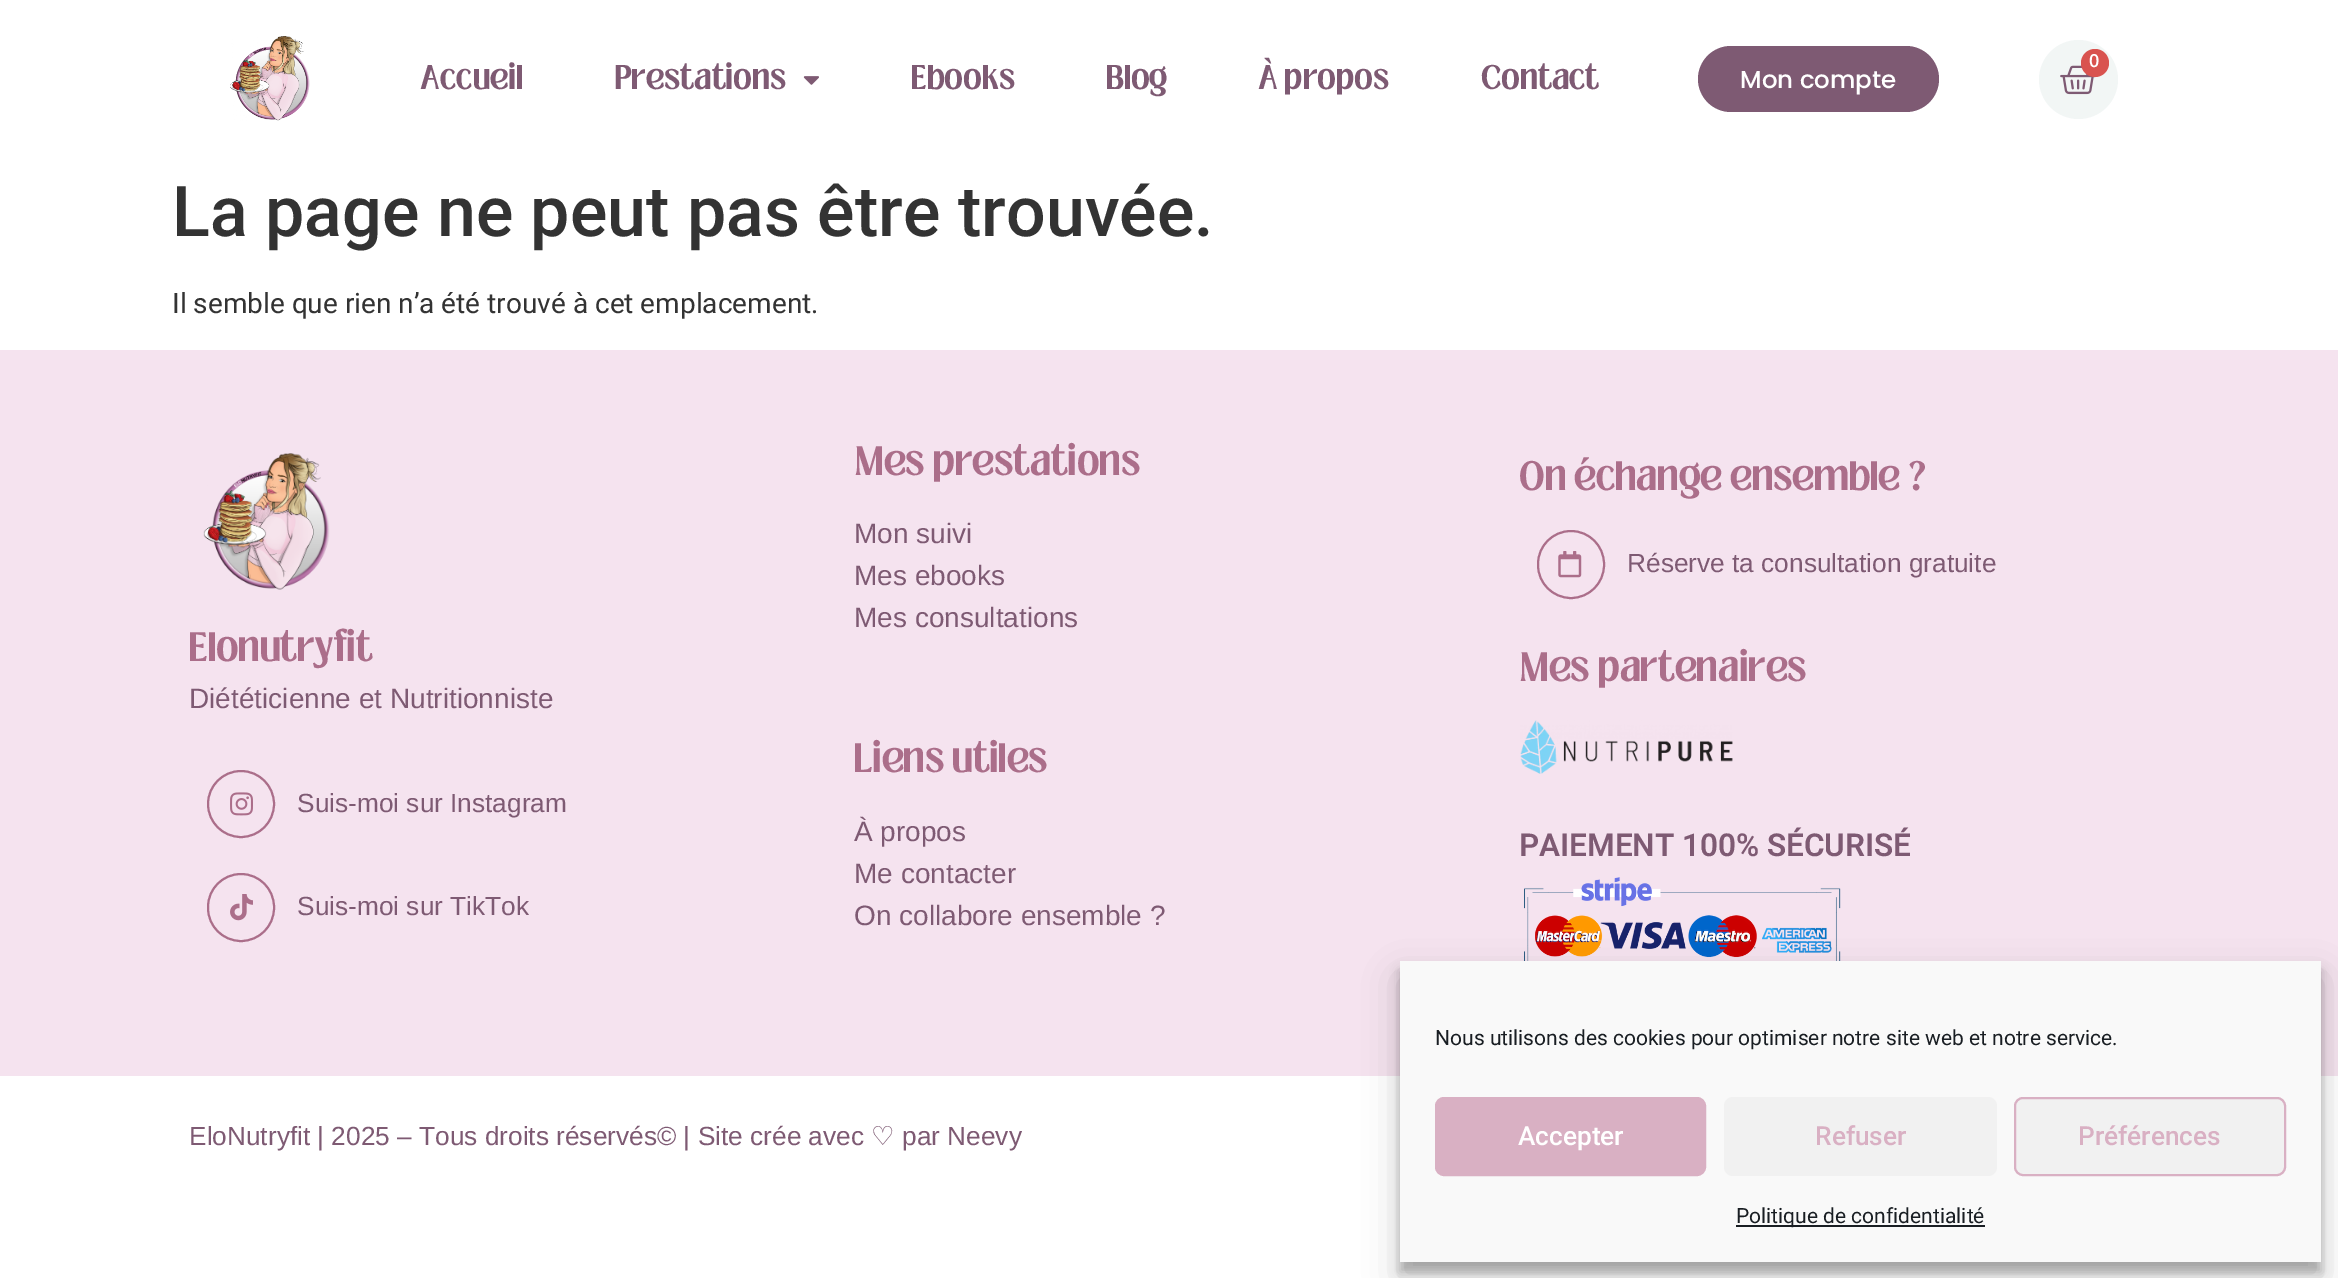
%!PS
<< /PageSize [2338 1278] /PageUsesTransparency true >> setpagedevice
/rgb { 3 { 255 div 3 1 roll } repeat setrgbcolor } def
/font { [ exch dup neg 0 0 3 -1 roll 0 0 ] selectfont } def
/text { moveto show } def
/alpha { dup .setfillconstantalpha .setstrokeconstantalpha } def
/circle { newpath 0 360 arc closepath } def
/roundrect { 5 dict begin { /r /h /w /y /x } { exch def } forall
  x r add y moveto x w add y 2 copy h add r arct x w add y h add x 1 index r arct
  x y h add x y r arct x y 2 copy exch w add exch r arct closepath end } def
/shadow { 12 dict begin { /a /b /q /h /w /y /x } { exch def } forall gsave /was 0 def
  9 -2 -9 { dup b mul 4 div /e exch def 1 sub .425 mul 2.718 exch exp 1 add a .99 .min exch div /now exch def
    1 1 now sub 1 was sub div sub alpha /was now def
    w h .min e 2 mul add 0 gt { x e sub y e sub w e 2 mul add h e 2 mul add
      q e add b .6 mul add w h .min 2 div e add .min 0 .max roundrect fill } if } for grestore end } def
/picture { 5 dict begin { /h /w /y /x /name } { exch def } forall
  gsave x y translate w h scale
  w h 8 [w 0 0 h 0 0] name (r) file false 3 colorimage grestore end } def
0 .pushpdf14devicefilter
0 1278 translate 1 -1 scale
4 setmiterlimit
255 255 255 rgb
0 0 2338 1278 rectfill
(img_01.rgb) 230 36 80 85 picture
(img_02.rgb) 803 76 16 9 picture
126 90 115 rgb
1698 46 241 66 33 roundrect fill
242 246 245 rgb
2078.5 79.5 39.5 circle fill
(img_03.rgb) 2060 65 37 30 picture
217 83 79 rgb
2095 63 14 circle fill
245 227 239 rgb
0 350 2338 726 rectfill
(img_04.rgb) 203 453 127 137 picture
171 110 138 rgb
2 setlinewidth
241 804 33 circle stroke
(img_05.rgb) 230 792 23 24 picture
208 874 66 67 33 roundrect stroke
(img_06.rgb) 230 894 23 27 picture
1538 531 66 67 33 roundrect stroke
(img_07.rgb) 1558 551 24 27 picture
(img_08.rgb) 1520 720 213 54 picture
(img_09.rgb) 1524 877 317 84 picture
0 0 0 rgb
1400 971 921 301 0 5 0.23 shadow
1400 978 921 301 0 17.5 0.19 shadow
249 249 249 rgb
1400 961 921 301 rectfill
217 176 195 rgb
1436 1098 269 77 8 roundrect gsave fill grestore
stroke
241 241 241 rgb
1724 1097 273 79 9 roundrect fill
2015 1098 270 77 8 roundrect gsave fill grestore
217 176 195 rgb
stroke
25 30 35 rgb
1736 1225 249 2 rectfill
/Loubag-Bold 26.25 font
126 90 115 rgb
(Accueil) 420 89 text
(Prestations) 614 89 text
(Ebooks) 911 89 text
(Blog) 1106 89 text
(À propos) 1258 89 text
(Contact) 1481 89 text
/Poppins-Medium 24.5 font
255 255 255 rgb
(Mon compte) 1740 88 text
/OpenSans-SemiBold 18 font
(0) 2089 67 text
/Roboto-Medium 70 font
51 51 51 rgb
(La page ne peut pas être trouvée.) 172 236 text
/Roboto-Regular 28 font
(Il semble que rien n’a été trouvé à cet emplacement.) 172 313 text
/Loubag-Bold 31.5 font
171 110 138 rgb
(Elonutryfit) 189 661 text
/LiberationSans-Regular 28 font
126 90 115 rgb
(Diététicienne et Nutritionniste) 189 708 text
/LiberationSans-Regular 26.25 font
(Suis-moi sur Instagram) 297 812 text
(Suis-moi sur TikTok) 297 915 text
/Loubag-Bold 31.5 font
171 110 138 rgb
(Mes prestations) 854 475 text
/LiberationSans-Regular 28 font
126 90 115 rgb
(Mon suivi) 854 543 text
(Mes ebooks) 854 585 text
(Mes consultations) 854 627 text
/Loubag-Bold 31.5 font
171 110 138 rgb
(Liens utiles) 854 772 text
/LiberationSans-Regular 28 font
126 90 115 rgb
(À propos) 854 841 text
(Me contacter) 854 883 text
(On collabore ensemble ?) 854 925 text
/Loubag-Bold 31.5 font
171 110 138 rgb
(On échange ensemble ?) 1519 490 text
/LiberationSans-Regular 26.25 font
126 90 115 rgb
(Réserve ta consultation gratuite) 1627 572 text
/Loubag-Bold 31.5 font
171 110 138 rgb
(Mes partenaires) 1519 681 text
/Roboto-SemiBold 31.5 font
126 90 115 rgb
(PAIEMENT 100% SÉCURISÉ) 1519 856 text
/LiberationSans-Regular 26.25 font
(EloNutryfit | 2025 – Tous droits réservés© | Site crée avec) 189 1145 text
/DejaVuSans-Regular 26.25 font
(♡) 871 1145 text
/LiberationSans-Regular 26.25 font
(par Neevy) 902 1145 text
/Roboto-Regular 21 font
25 30 35 rgb
(Nous utilisons des cookies pour optimiser notre site web et notre service.) 1435 1045 text
/Roboto-Medium 26.25 font
255 255 255 rgb
(Accepter) 1518 1145 text
217 176 195 rgb
(Refuser) 1815 1145 text
(Préférences) 2078 1145 text
/Roboto-Regular 21 font
25 30 35 rgb
(Politique de confidentialité) 1736 1223 text
.poppdf14devicefilter showpage
